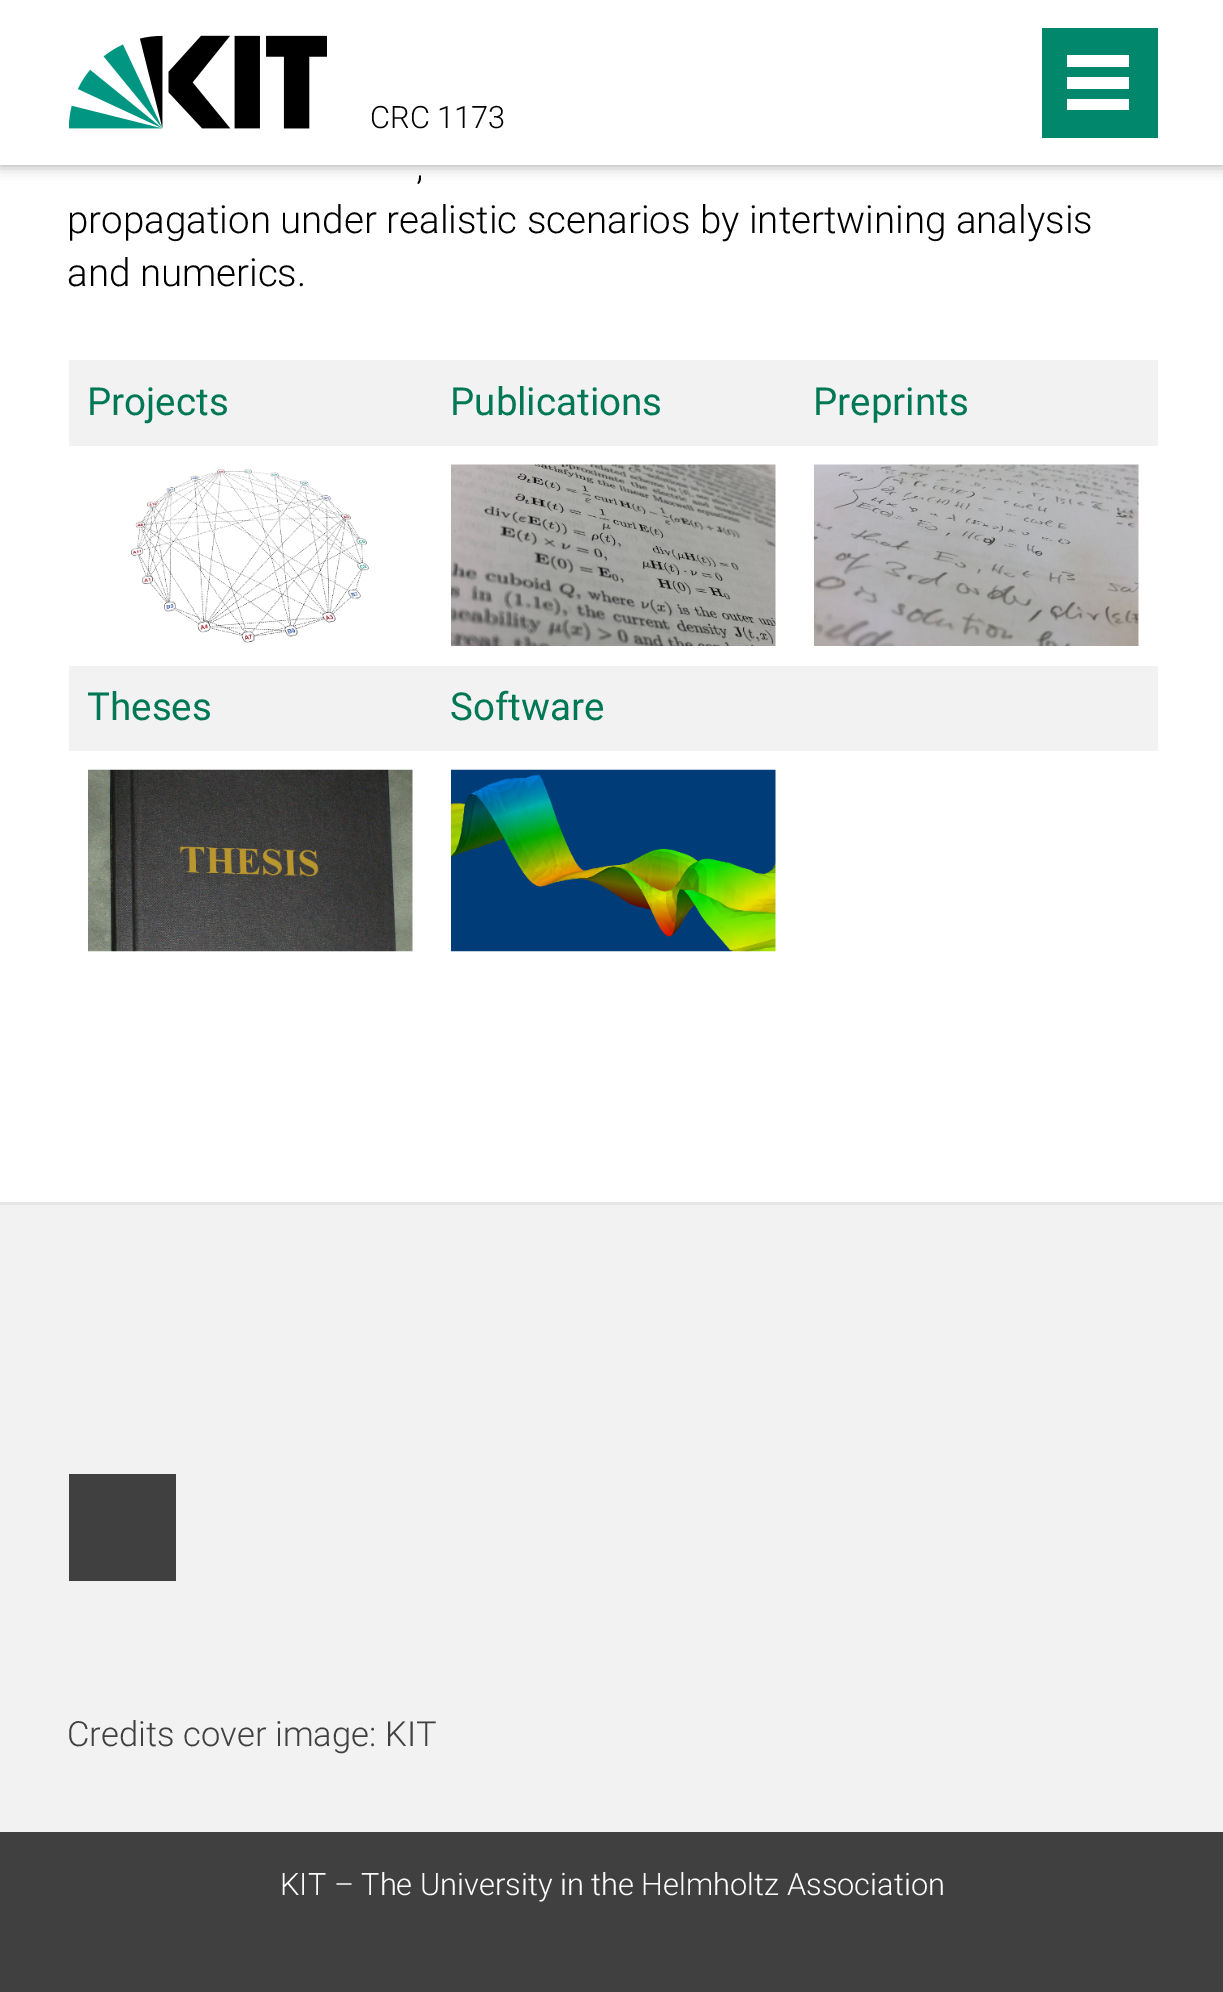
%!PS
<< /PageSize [1223 1992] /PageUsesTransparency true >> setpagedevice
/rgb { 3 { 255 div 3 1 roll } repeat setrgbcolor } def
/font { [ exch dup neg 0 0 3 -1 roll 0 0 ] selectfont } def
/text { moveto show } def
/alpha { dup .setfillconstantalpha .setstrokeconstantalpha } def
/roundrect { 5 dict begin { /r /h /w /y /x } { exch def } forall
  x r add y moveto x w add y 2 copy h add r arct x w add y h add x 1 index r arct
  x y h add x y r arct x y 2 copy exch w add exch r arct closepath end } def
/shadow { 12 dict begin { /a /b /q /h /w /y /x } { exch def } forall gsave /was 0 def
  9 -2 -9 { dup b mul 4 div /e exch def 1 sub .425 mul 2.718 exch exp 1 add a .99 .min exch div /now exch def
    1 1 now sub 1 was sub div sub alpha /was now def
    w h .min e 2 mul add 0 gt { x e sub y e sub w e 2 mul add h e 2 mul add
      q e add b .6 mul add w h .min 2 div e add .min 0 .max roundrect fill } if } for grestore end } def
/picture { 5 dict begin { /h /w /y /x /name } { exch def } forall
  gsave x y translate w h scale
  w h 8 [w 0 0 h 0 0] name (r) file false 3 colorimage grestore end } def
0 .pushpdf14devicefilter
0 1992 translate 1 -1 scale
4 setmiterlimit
255 255 255 rgb
0 0 1223 1992 rectfill
64 64 64 rgb
0 0 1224 165 0 7 0.5 shadow
255 255 255 rgb
0 0 1223 165 rectfill
(img_01.rgb) 69 35 258 94 picture
0 135 108 rgb
1042 28 116 110 rectfill
255 255 255 rgb
1067 99 62 11 rectfill
1067 77 62 12 rectfill
1067 55 62 12 rectfill
242 242 242 rgb
69 360 1089 86 rectfill
(img_02.rgb) 131 469 238 174 picture
(img_03.rgb) 451 464 325 182 picture
(img_04.rgb) 814 464 325 182 picture
69 666 1089 85 rectfill
(img_05.rgb) 88 769 325 183 picture
(img_06.rgb) 451 769 325 183 picture
0 1205 1223 627 rectfill
230 230 230 rgb
0 1202 1223 3 rectfill
64 64 64 rgb
69 1474 107 107 rectfill
0 1832 1223 160 rectfill
/Roboto-Light 30.8 font
0 0 0 rgb
(CRC 1173) 370 128 text
/Roboto-Light 38.5 font
(,) 416 179 text
(propagation under realistic scenarios by intertwining analysis) 67 233 text
(and numerics.) 67 286 text
/Roboto-Regular 38.5 font
0 119 85 rgb
(Projects) 87 415 text
(Publications) 450 415 text
(Preprints) 813 415 text
(Theses) 87 720 text
(Software) 450 720 text
/Roboto-Light 34.6 font
64 64 64 rgb
(Credits cover image: KIT) 67 1746 text
/Roboto-Light 30.8 font
255 255 255 rgb
(KIT – The University in the Helmholtz Association) 280 1895 text
.poppdf14devicefilter showpage
